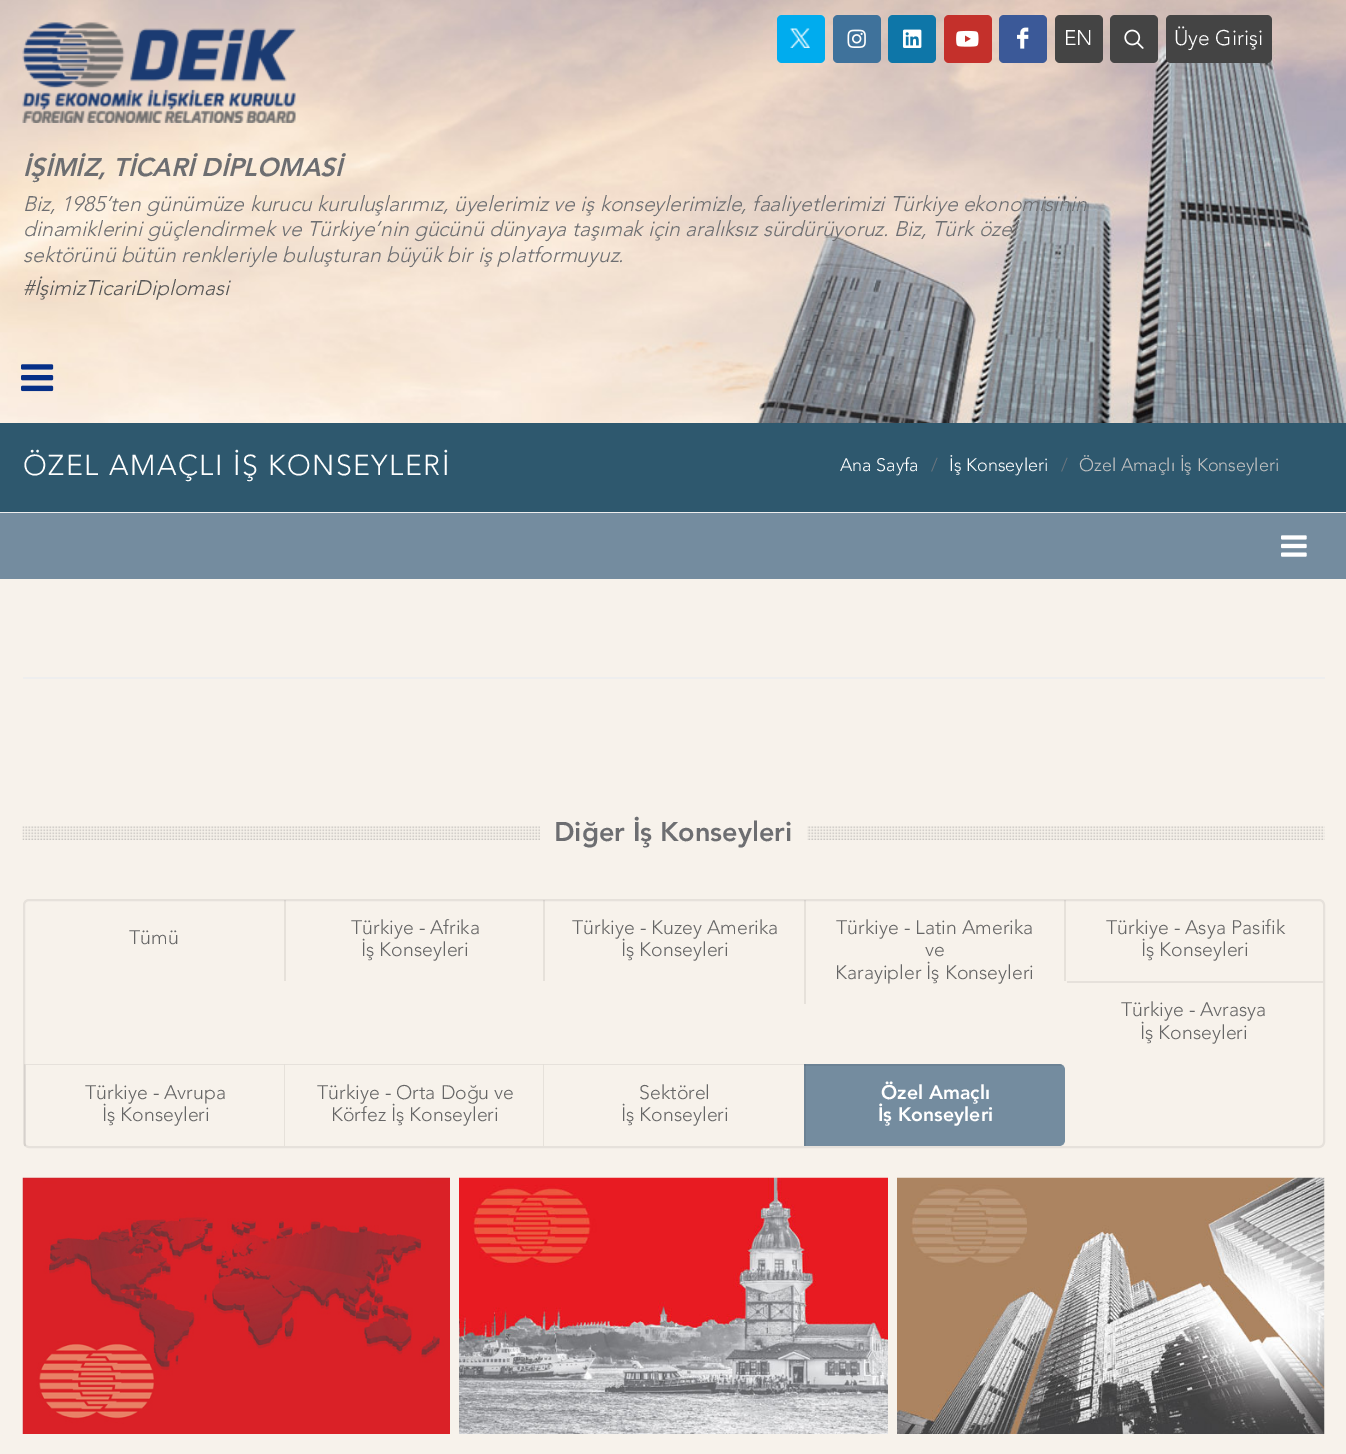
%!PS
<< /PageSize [1346 1454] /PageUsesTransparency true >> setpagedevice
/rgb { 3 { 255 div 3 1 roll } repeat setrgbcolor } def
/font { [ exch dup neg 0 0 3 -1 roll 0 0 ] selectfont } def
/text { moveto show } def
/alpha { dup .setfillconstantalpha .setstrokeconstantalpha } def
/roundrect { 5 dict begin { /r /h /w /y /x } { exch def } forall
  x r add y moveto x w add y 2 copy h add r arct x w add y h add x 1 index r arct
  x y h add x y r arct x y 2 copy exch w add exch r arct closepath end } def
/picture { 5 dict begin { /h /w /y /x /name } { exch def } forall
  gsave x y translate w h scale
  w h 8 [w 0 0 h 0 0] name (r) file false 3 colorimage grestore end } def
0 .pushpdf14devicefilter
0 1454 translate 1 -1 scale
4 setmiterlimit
247 242 235 rgb
0 0 1346 1454 rectfill
(img_01.rgb) 0 0 1346 423 picture
0 172 238 rgb
777 15 48 48 5 roundrect fill
(img_02.rgb) 790 28 20 20 picture
63 114 155 rgb
833 15 48 48 5 roundrect fill
(img_03.rgb) 847 29 19 19 picture
14 118 168 rgb
888 15 48 48 5 roundrect fill
(img_04.rgb) 903 29 19 19 picture
196 48 43 rgb
944 15 48 48 5 roundrect fill
(img_05.rgb) 956 30 23 17 picture
59 89 152 rgb
999 15 48 48 5 roundrect fill
(img_06.rgb) 1017 27 12 22 picture
68 68 68 rgb
1055 15 48 48 5 roundrect fill
1110 15 48 48 5 roundrect fill
(img_07.rgb) 1124 29 20 20 picture
1166 15 106 48 5 roundrect fill
(img_08.rgb) 22 22 274 101 picture
(img_09.rgb) 21 364 33 28 picture
46 88 110 rgb
0 423 1346 89 rectfill
238 238 238 rgb
0 512 1346 1 rectfill
116 140 159 rgb
0 513 1346 66 rectfill
(img_10.rgb) 1281 535 26 22 picture
238 238 238 rgb
23 677 1302 2 rectfill
(img_11.rgb) 22 826 1303 14 picture
247 242 235 rgb
540 826 267 14 rectfill
230 225 219 rgb
2 setlinewidth
24 900 1300 247 5 roundrect stroke
0.07 alpha
0 0 0 rgb
284 900 2 81 rectfill
543 900 2 81 rectfill
804 900 2 104 rectfill
1064 900 2 81 rectfill
1 alpha
230 225 219 rgb
1067 981 256 2 rectfill
24 1064 moveto 260 0 rlineto 0 1 rlineto -258 0 rlineto closepath fill
0.07 alpha
0 0 0 rgb
24 1146 moveto 0 -82 rlineto 2 1 rlineto 0 81 rlineto closepath fill
1 alpha
230 225 219 rgb
284 1064 moveto 259 0 rlineto 0 1 rlineto -258 0 rlineto closepath fill
0.07 alpha
0 0 0 rgb
284 1146 moveto 0 -82 rlineto 1 1 rlineto 0 81 rlineto closepath fill
1 alpha
230 225 219 rgb
543 1064 moveto 261 0 rlineto 0 1 rlineto -260 0 rlineto closepath fill
0.07 alpha
0 0 0 rgb
543 1146 moveto 0 -82 rlineto 1 1 rlineto 0 81 rlineto closepath fill
1 alpha
116 140 159 rgb
804 1064 moveto 255 0 rlineto 3.5 0 6 2.5 6 6 rcurveto 0 70 rlineto 0 3.5 -2.5 6 -6 6 rcurveto -255 0 rlineto closepath fill
0.07 alpha
0 0 0 rgb
804 1064 258 2 rectfill
804 1064 2 82 rectfill
1 alpha
(img_12.rgb) 22 1177 428 257 picture
(img_13.rgb) 459 1177 429 257 picture
(img_14.rgb) 897 1177 428 257 picture
/Avenir-Light 21 font
255 255 255 rgb
(EN) 1064 45 text
(Üye Girişi) 1174 45 text
/Avenir-BlackItalic 25.5 font
109 110 113 rgb
(İŞİMİZ, TİCARİ DİPLOMASİ) 23 176 text
/Avenir-LightItalic 21 font
(Biz, 1985’ten günümüze kurucu kuruluşlarımız, üyelerimiz ve iş konseylerimizle, faaliyetlerimizi Türkiye ekonomisinin) 23 211 text
(dinamiklerini güçlendirmek ve Türkiye’nin gücünü dünyaya taşımak için aralıksız sürdürüyoruz. Biz, Türk özel) 23 236 text
(sektörünü bütün renkleriyle buluşturan büyük bir iş platformuyuz.) 23 262 text
85 85 85 rgb
(#İşimizTicariDiplomasi) 23 295 text
/Avenir-Light 28.5 font
255 255 255 rgb
23 475 moveto 1.5 0 (ÖZEL AMAÇLI İŞ KONSEYLERİ) ashow
/Avenir-Light 18 font
(Ana Sayfa) 840 471 text
108 117 125 rgb
(/) 931 471 text
255 255 255 rgb
(İş Konseyleri) 949 471 text
108 117 125 rgb
(/) 1061 471 text
194 194 194 rgb
(Özel Amaçlı İş Konseyleri) 1079 471 text
/Avenir-Black 27 font
109 110 113 rgb
(Diğer İş Konseyleri) 554 841 text
/Avenir-Light 19.5 font
102 102 102 rgb
(Tümü) 129 944 text
(Türkiye - Afrika) 351 934 text
(İş Konseyleri) 361 956 text
(Türkiye - Kuzey Amerika) 572 934 text
(İş Konseyleri) 621 956 text
(Türkiye - Latin Amerika) 836 934 text
(ve) 925 956 text
(Karayipler İş Konseyleri) 835 979 text
(Türkiye - Asya Pasifik) 1106 934 text
(İş Konseyleri) 1141 956 text
(Türkiye - Avrasya) 1121 1016 text
(İş Konseyleri) 1140 1039 text
(Türkiye - Avrupa) 85 1099 text
(İş Konseyleri) 102 1121 text
(Türkiye - Orta Doğu ve) 317 1099 text
(Körfez İş Konseyleri) 331 1121 text
(Sektörel) 639 1099 text
(İş Konseyleri) 621 1121 text
/Avenir-Black 19.5 font
255 255 255 rgb
(Özel Amaçlı) 881 1099 text
(İş Konseyleri) 878 1121 text
.poppdf14devicefilter showpage
